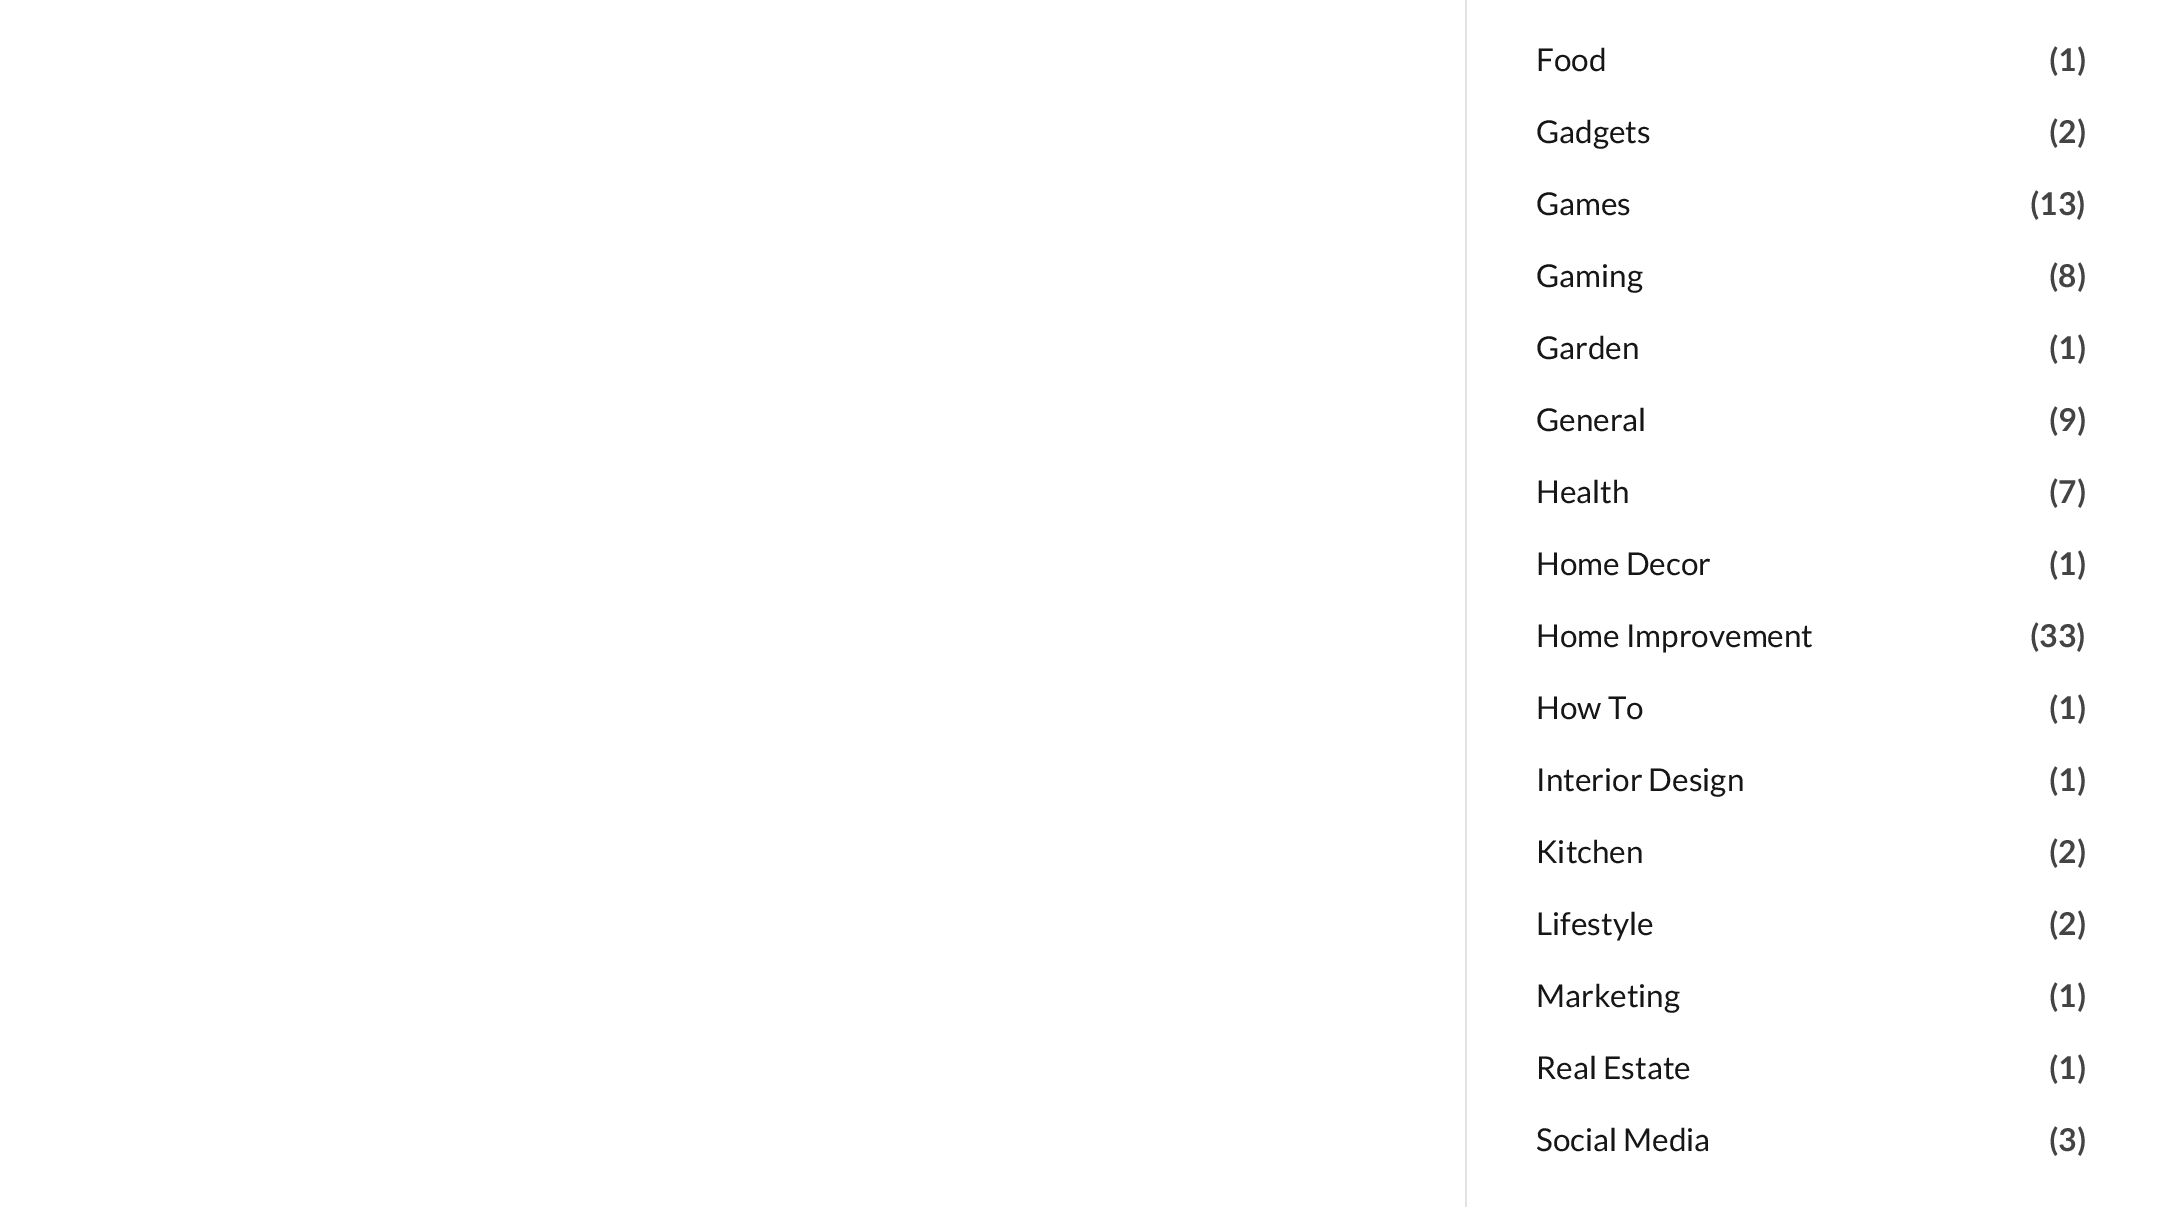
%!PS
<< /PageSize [2164 1207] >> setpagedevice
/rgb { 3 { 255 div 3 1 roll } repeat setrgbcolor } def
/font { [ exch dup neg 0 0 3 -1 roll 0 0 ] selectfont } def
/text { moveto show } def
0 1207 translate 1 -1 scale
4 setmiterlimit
255 255 255 rgb
0 0 2164 1207 rectfill
226 226 226 rgb
1465 0 2 1207 rectfill
/Lato-Regular 31.5 font
22 22 22 rgb
(Food) 1536 71 text
/Lato-Bold 31.5 font
68 68 68 rgb
(\(1\)) 2049 71 text
/Lato-Regular 31.5 font
22 22 22 rgb
(Gadgets) 1536 143 text
/Lato-Bold 31.5 font
68 68 68 rgb
(\(2\)) 2049 143 text
/Lato-Regular 31.5 font
22 22 22 rgb
(Games) 1536 215 text
/Lato-Bold 31.5 font
68 68 68 rgb
(\(13\)) 2030 215 text
/Lato-Regular 31.5 font
22 22 22 rgb
(Gaming) 1536 287 text
/Lato-Bold 31.5 font
68 68 68 rgb
(\(8\)) 2049 287 text
/Lato-Regular 31.5 font
22 22 22 rgb
(Garden) 1536 359 text
/Lato-Bold 31.5 font
68 68 68 rgb
(\(1\)) 2049 359 text
/Lato-Regular 31.5 font
22 22 22 rgb
(General) 1536 431 text
/Lato-Bold 31.5 font
68 68 68 rgb
(\(9\)) 2049 431 text
/Lato-Regular 31.5 font
22 22 22 rgb
(Health) 1536 503 text
/Lato-Bold 31.5 font
68 68 68 rgb
(\(7\)) 2049 503 text
/Lato-Regular 31.5 font
22 22 22 rgb
(Home Decor) 1536 575 text
/Lato-Bold 31.5 font
68 68 68 rgb
(\(1\)) 2049 575 text
/Lato-Regular 31.5 font
22 22 22 rgb
(Home Improvement) 1536 647 text
/Lato-Bold 31.5 font
68 68 68 rgb
(\(33\)) 2030 647 text
/Lato-Regular 31.5 font
22 22 22 rgb
(How To) 1536 719 text
/Lato-Bold 31.5 font
68 68 68 rgb
(\(1\)) 2049 719 text
/Lato-Regular 31.5 font
22 22 22 rgb
(Interior Design) 1536 791 text
/Lato-Bold 31.5 font
68 68 68 rgb
(\(1\)) 2049 791 text
/Lato-Regular 31.5 font
22 22 22 rgb
(Kitchen) 1536 863 text
/Lato-Bold 31.5 font
68 68 68 rgb
(\(2\)) 2049 863 text
/Lato-Regular 31.5 font
22 22 22 rgb
(Lifestyle) 1536 935 text
/Lato-Bold 31.5 font
68 68 68 rgb
(\(2\)) 2049 935 text
/Lato-Regular 31.5 font
22 22 22 rgb
(Marketing) 1536 1007 text
/Lato-Bold 31.5 font
68 68 68 rgb
(\(1\)) 2049 1007 text
/Lato-Regular 31.5 font
22 22 22 rgb
(Real Estate) 1536 1079 text
/Lato-Bold 31.5 font
68 68 68 rgb
(\(1\)) 2049 1079 text
/Lato-Regular 31.5 font
22 22 22 rgb
(Social Media) 1536 1151 text
/Lato-Bold 31.5 font
68 68 68 rgb
(\(3\)) 2049 1151 text
showpage
